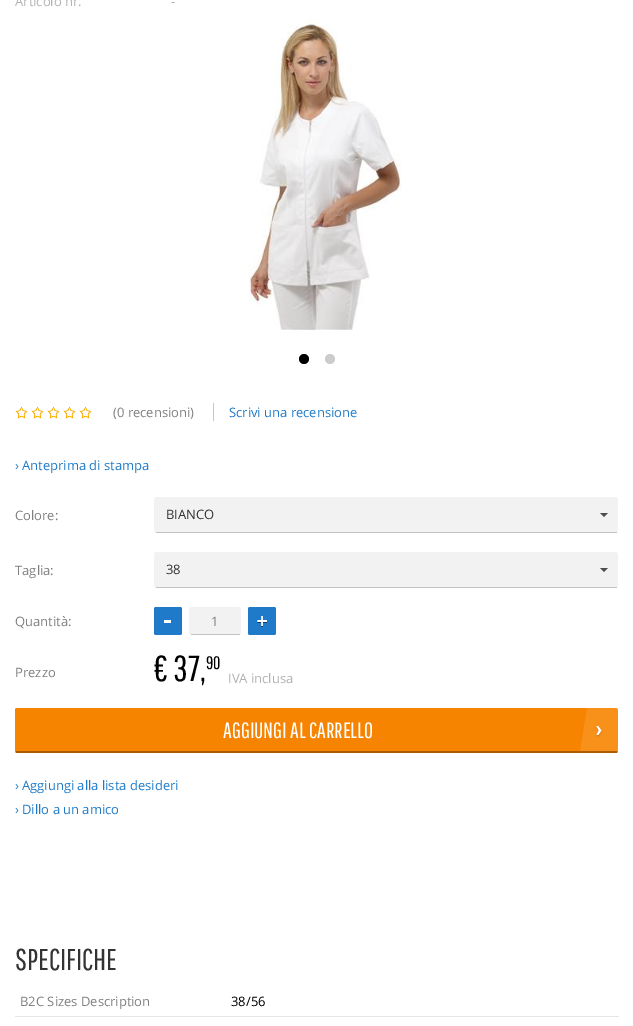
%!PS
<< /PageSize [633 1026] >> setpagedevice
/rgb { 3 { 255 div 3 1 roll } repeat setrgbcolor } def
/font { [ exch dup neg 0 0 3 -1 roll 0 0 ] selectfont } def
/text { moveto show } def
/circle { newpath 0 360 arc closepath } def
/roundrect { 5 dict begin { /r /h /w /y /x } { exch def } forall
  x r add y moveto x w add y 2 copy h add r arct x w add y h add x 1 index r arct
  x y h add x y r arct x y 2 copy exch w add exch r arct closepath end } def
/picture { 5 dict begin { /h /w /y /x /name } { exch def } forall
  gsave x y translate w h scale
  w h 8 [w 0 0 h 0 0] name (r) file false 3 colorimage grestore end } def
0 1026 translate 1 -1 scale
4 setmiterlimit
255 255 255 rgb
0 0 633 1026 rectfill
(img_01.rgb) 249 19 153 311 picture
0 0 0 rgb
304 359 5 circle fill
204 204 204 rgb
330 359 5 circle fill
(img_02.rgb) 15 406 8 13 picture
(img_03.rgb) 23 409 5 10 picture
(img_02.rgb) 31 406 8 13 picture
(img_03.rgb) 39 409 5 10 picture
(img_02.rgb) 47 406 8 13 picture
(img_03.rgb) 55 409 5 10 picture
(img_02.rgb) 63 406 8 13 picture
(img_03.rgb) 71 409 5 10 picture
(img_02.rgb) 79 406 8 13 picture
(img_03.rgb) 87 409 5 10 picture
200 199 199 rgb
213 403 1 18 rectfill
242 242 242 rgb
154 497 464 36 3 roundrect fill
194 194 194 rgb
156 532 461 1 rectfill
77 77 77 rgb
600 513 moveto 8 0 rlineto -4 4 rlineto closepath fill
242 242 242 rgb
154 552 464 36 3 roundrect fill
194 194 194 rgb
156 587 461 1 rectfill
77 77 77 rgb
600 568 moveto 8 0 rlineto -4 4 rlineto closepath fill
242 242 242 rgb
189 607 52 28 3 roundrect fill
194 194 194 rgb
191 634 49 1 rectfill
31 123 201 rgb
154 607 28 28 2 roundrect fill
255 255 255 rgb
164 620 7 3 rectfill
31 123 201 rgb
248 607 28 28 2 roundrect fill
(img_04.rgb) 257 616 10 11 picture
247 132 0 rgb
15 708 603 45 2 roundrect fill
172 92 0 rgb
16 751 601 2 rectfill
(img_05.rgb) 596 726 6 11 picture
(img_06.rgb) 580 708 38 43 picture
230 230 230 rgb
15 1016 604 1 rectfill
/OpenSans-Regular 13 font
178 178 178 rgb
(Articolo nr.) 15 6 text
(-) 171 6 text
128 128 128 rgb
(\(0 recensioni\)) 113 417 text
31 123 201 rgb
(Scrivi una recensione) 229 417 text
(›) 15 470 text
(Anteprima di stampa) 22 470 text
128 128 128 rgb
(Colore:) 15 520 text
51 51 51 rgb
(BIANCO) 166 519 text
128 128 128 rgb
(Taglia:) 15 575 text
51 51 51 rgb
(38) 166 574 text
128 128 128 rgb
(Quantità:) 15 626 text
(1) 211 626 text
(Prezzo) 15 677 text
/PathwayGothicOne-Regular 36 font
0 0 0 rgb
(€ 37,) 154 681 text
/PathwayGothicOne-Regular 18 font
(90) 206 669 text
/OpenSans-Regular 13 font
178 178 178 rgb
(IVA inclusa) 228 683 text
/PathwayGothicOne-Regular 22 font
255 255 255 rgb
(AGGIUNGI AL CARRELLO) 223 738 text
/OpenSans-Regular 13 font
31 123 201 rgb
(›) 15 790 text
(Aggiungi alla lista desideri) 22 790 text
(›) 15 814 text
(Dillo a un amico) 22 814 text
/PathwayGothicOne-Regular 30 font
51 51 51 rgb
(SPECIFICHE) 15 970 text
/OpenSans-Regular 13 font
128 128 128 rgb
(B2C Sizes Description) 20 1006 text
0 0 0 rgb
(38/56) 231 1006 text
showpage
